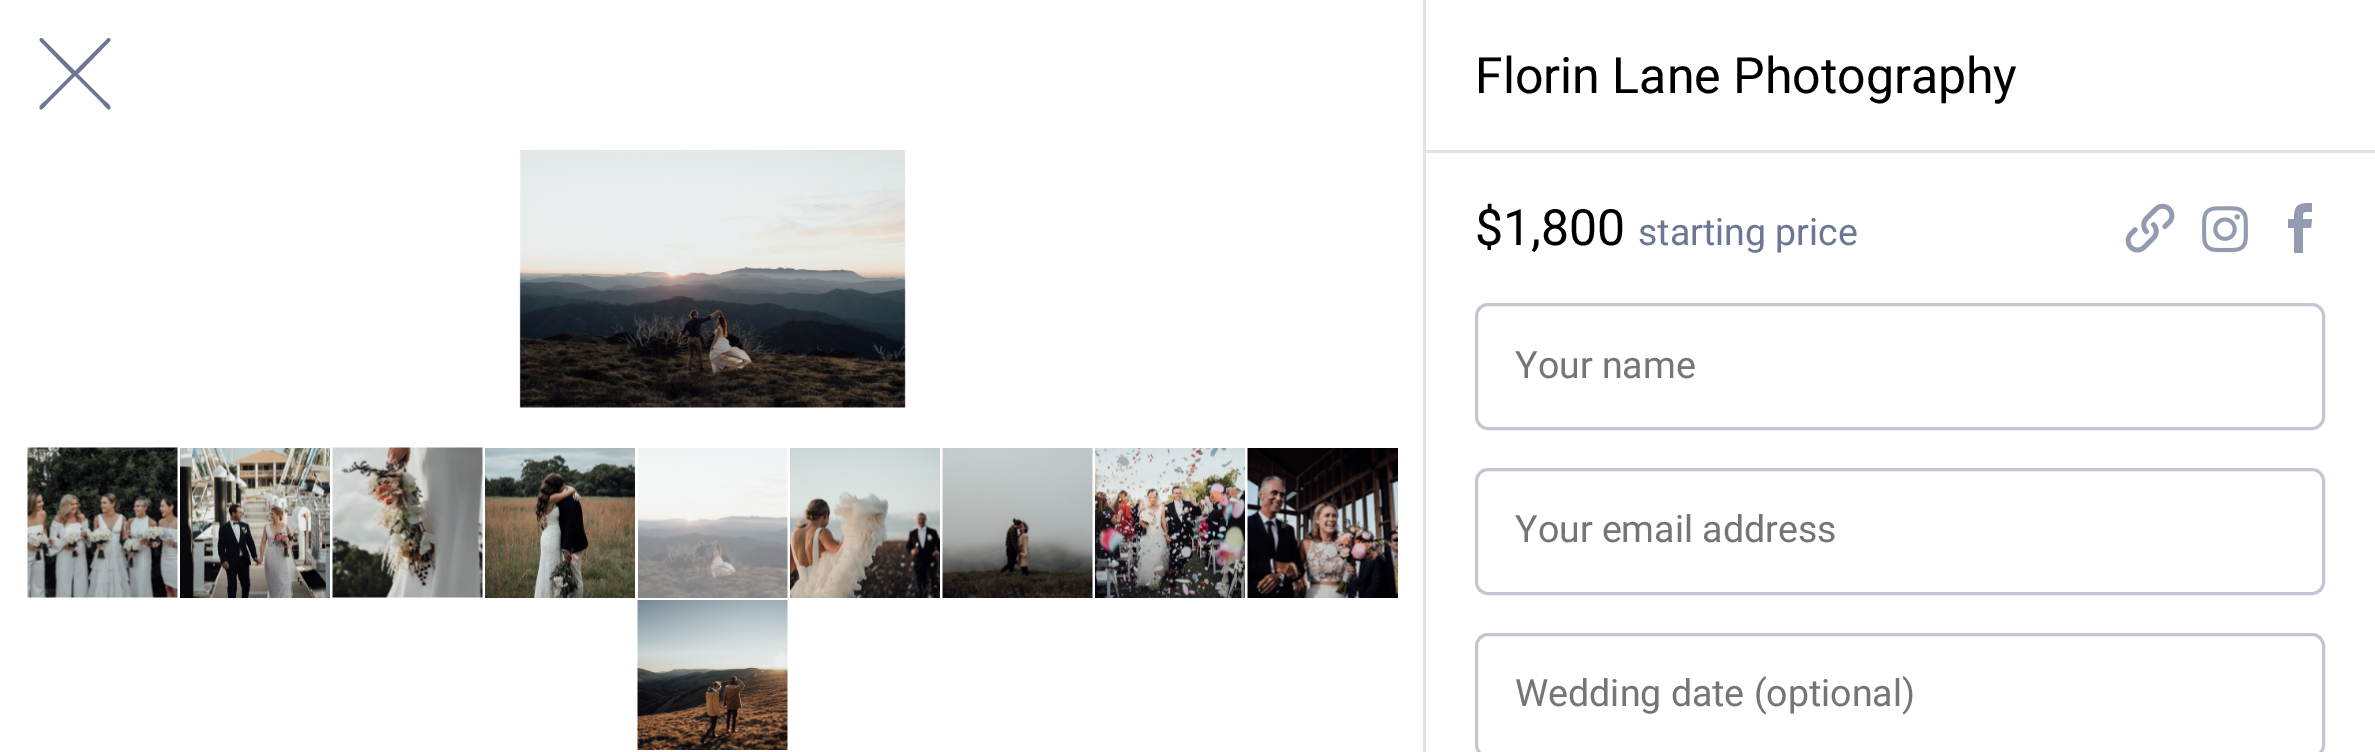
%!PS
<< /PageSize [2375 752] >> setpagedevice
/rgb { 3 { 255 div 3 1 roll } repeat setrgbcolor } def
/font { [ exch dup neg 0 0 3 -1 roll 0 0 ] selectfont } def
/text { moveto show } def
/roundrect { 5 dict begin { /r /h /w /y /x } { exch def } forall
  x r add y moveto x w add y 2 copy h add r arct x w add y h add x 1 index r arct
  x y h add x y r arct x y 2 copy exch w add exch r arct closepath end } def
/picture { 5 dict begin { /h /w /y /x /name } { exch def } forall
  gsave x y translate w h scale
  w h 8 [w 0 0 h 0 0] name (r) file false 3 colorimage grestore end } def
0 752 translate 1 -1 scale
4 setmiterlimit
255 255 255 rgb
0 0 2375 752 rectfill
223 226 232 rgb
1423 0 3 752 rectfill
108 120 147 rgb
78 74 moveto 32 -33 rlineto 1 -2 0 -3 -2 -3 rcurveto -33 33 rlineto -33 -33 rlineto -2 0 -3 1 -2 3 rcurveto 32 33 rlineto -27 27 rlineto -2 2 -7 5 -5 8 rcurveto 2 2 5 -3 8 -6 rcurveto 27 -27 rlineto 27 27 rlineto 3 3 6 8 8 6 rcurveto 2 -3 -3 -6 -5 -8 rcurveto closepath fill
(img_01.rgb) 519 150 387 258 picture
(img_02.rgb) 27 447 151 151 picture
(img_03.rgb) 180 448 150 150 picture
(img_04.rgb) 332 447 151 151 picture
(img_05.rgb) 485 448 150 150 picture
(img_06.rgb) 638 448 150 150 picture
(img_07.rgb) 790 448 150 150 picture
(img_08.rgb) 942 448 151 150 picture
(img_09.rgb) 1095 448 150 150 picture
(img_10.rgb) 1247 448 151 150 picture
(img_11.rgb) 637 600 151 150 picture
223 226 232 rgb
1425 150 950 3 rectfill
(img_12.rgb) 2125 203 50 50 picture
(img_13.rgb) 2202 206 46 47 picture
146 155 175 rgb
2305 212 moveto 7 0 rlineto 0 -9 rlineto -13 0 -18 1 -18 16 rcurveto -6 0 rlineto 0 9 rlineto 6 0 rlineto 0 25 rlineto 9 0 rlineto 0 -25 rlineto 8 0 rlineto 1 -9 rlineto -9 0 rlineto 0 -1 -1 -7 2 -7 rcurveto closepath fill
193 198 209 rgb
3 setlinewidth
1476.5 304.5 847 124 11.5 roundrect stroke
1476.5 469.5 847 124 11.5 roundrect stroke
1476.5 634.5 847 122 11.5 roundrect stroke
/Roboto-Regular 50 font
0 0 0 rgb
(Florin Lane Photography) 1475 93 text
($1,800) 1475 245 text
/Roboto-Regular 37.5 font
108 120 147 rgb
(starting price) 1638 245 text
117 117 117 rgb
(Your name) 1515 378 text
(Your email address) 1515 542 text
(Wedding date \(optional\)) 1515 706 text
showpage
